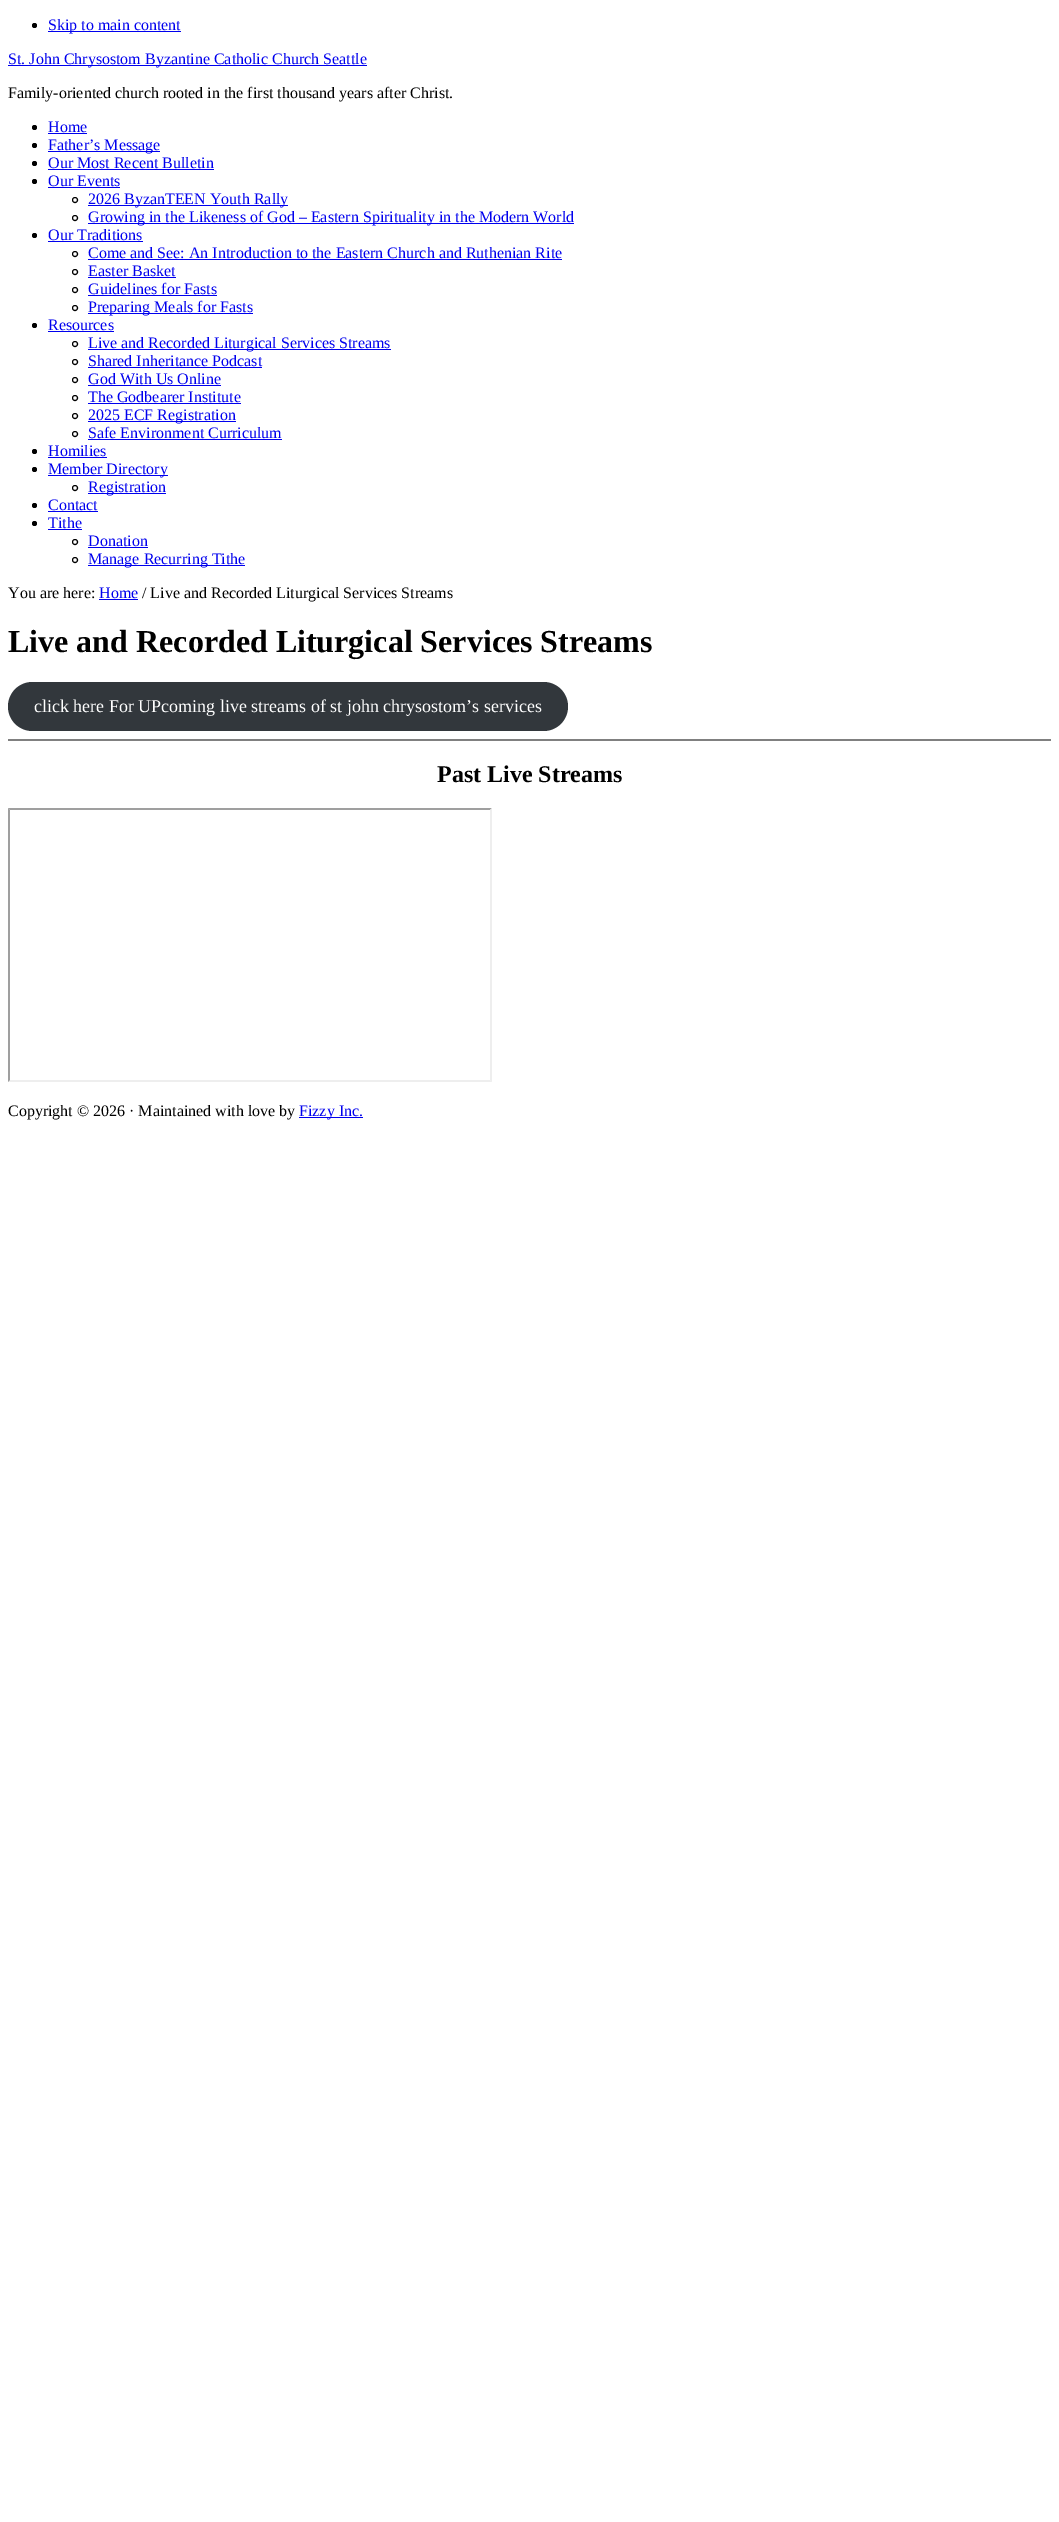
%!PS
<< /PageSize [1059 2522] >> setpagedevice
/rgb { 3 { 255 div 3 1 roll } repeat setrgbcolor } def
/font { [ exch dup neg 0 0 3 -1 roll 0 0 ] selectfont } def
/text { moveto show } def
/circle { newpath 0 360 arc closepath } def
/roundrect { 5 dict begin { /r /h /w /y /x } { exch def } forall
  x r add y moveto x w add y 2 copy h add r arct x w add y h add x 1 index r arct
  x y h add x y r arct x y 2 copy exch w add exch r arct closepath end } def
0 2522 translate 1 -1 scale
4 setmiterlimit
255 255 255 rgb
0 0 1059 2522 rectfill
0 0 0 rgb
34.5 25.5 2.5 circle fill
0 0 238 rgb
48 31 133 1 rectfill
8 65 359 1 rectfill
0 0 0 rgb
34.5 127.5 2.5 circle fill
0 0 238 rgb
48 133 39 1 rectfill
0 0 0 rgb
34.5 145.5 2.5 circle fill
0 0 238 rgb
48 151 112 1 rectfill
0 0 0 rgb
34.5 163.5 2.5 circle fill
0 0 238 rgb
48 169 166 1 rectfill
0 0 0 rgb
34.5 181.5 2.5 circle fill
0 0 238 rgb
48 187 72 1 rectfill
0 0 0 rgb
75 200 2.5 circle stroke
0 0 238 rgb
88 205 200 1 rectfill
0 0 0 rgb
75 218 2.5 circle stroke
0 0 238 rgb
88 223 486 1 rectfill
0 0 0 rgb
34.5 235.5 2.5 circle fill
0 0 238 rgb
48 241 95 1 rectfill
0 0 0 rgb
75 254 2.5 circle stroke
0 0 238 rgb
88 259 474 1 rectfill
0 0 0 rgb
75 272 2.5 circle stroke
0 0 238 rgb
88 277 88 1 rectfill
0 0 0 rgb
75 290 2.5 circle stroke
0 0 238 rgb
88 295 129 1 rectfill
0 0 0 rgb
75 308 2.5 circle stroke
0 0 238 rgb
88 313 165 1 rectfill
0 0 0 rgb
34.5 325.5 2.5 circle fill
0 0 238 rgb
48 331 66 1 rectfill
0 0 0 rgb
75 344 2.5 circle stroke
0 0 238 rgb
88 349 303 1 rectfill
0 0 0 rgb
75 362 2.5 circle stroke
0 0 238 rgb
88 367 174 1 rectfill
0 0 0 rgb
75 380 2.5 circle stroke
0 0 238 rgb
88 385 133 1 rectfill
0 0 0 rgb
75 398 2.5 circle stroke
0 0 238 rgb
88 403 153 1 rectfill
0 0 0 rgb
75 416 2.5 circle stroke
0 0 238 rgb
88 421 148 1 rectfill
0 0 0 rgb
75 434 2.5 circle stroke
0 0 238 rgb
88 439 194 1 rectfill
0 0 0 rgb
34.5 451.5 2.5 circle fill
0 0 238 rgb
48 457 59 1 rectfill
0 0 0 rgb
34.5 469.5 2.5 circle fill
0 0 238 rgb
48 475 120 1 rectfill
0 0 0 rgb
75 488 2.5 circle stroke
0 0 238 rgb
88 493 78 1 rectfill
0 0 0 rgb
34.5 505.5 2.5 circle fill
0 0 238 rgb
48 511 50 1 rectfill
0 0 0 rgb
34.5 523.5 2.5 circle fill
0 0 238 rgb
48 529 34 1 rectfill
0 0 0 rgb
75 542 2.5 circle stroke
0 0 238 rgb
88 547 60 1 rectfill
0 0 0 rgb
75 560 2.5 circle stroke
0 0 238 rgb
88 565 157 1 rectfill
99 599 39 1 rectfill
50 55 60 rgb
8 682 560 49 24.5 roundrect fill
128 128 128 rgb
8 739 1043 2 rectfill
159 159 159 rgb
8 808 moveto 484 0 rlineto -2 2 rlineto -480 0 rlineto closepath fill
238 238 238 rgb
492 808 moveto 0 274 rlineto -2 -2 rlineto 0 -270 rlineto closepath fill
492 1082 moveto -484 0 rlineto 2 -2 rlineto 480 0 rlineto closepath fill
159 159 159 rgb
8 1082 moveto 0 -274 rlineto 2 2 rlineto 0 270 rlineto closepath fill
0 0 238 rgb
299 1117 64 1 rectfill
/LiberationSerif-Regular 16 font
(Skip to main content) 48 30 text
(St. John Chrysostom Byzantine Catholic Church Seattle) 8 64 text
0 0 0 rgb
(Family-oriented church rooted in the first thousand years after Christ.) 8 98 text
0 0 238 rgb
(Home) 48 132 text
(Father’s Message) 48 150 text
(Our Most Recent Bulletin) 48 168 text
(Our Events) 48 186 text
(2026 ByzanTEEN Youth Rally) 88 204 text
(Growing in the Likeness of God – Eastern Spirituality in the Modern World) 88 222 text
(Our Traditions) 48 240 text
(Come and See: An Introduction to the Eastern Church and Ruthenian Rite) 88 258 text
(Easter Basket) 88 276 text
(Guidelines for Fasts) 88 294 text
(Preparing Meals for Fasts) 88 312 text
(Resources) 48 330 text
(Live and Recorded Liturgical Services Streams) 88 348 text
(Shared Inheritance Podcast) 88 366 text
(God With Us Online) 88 384 text
(The Godbearer Institute) 88 402 text
(2025 ECF Registration) 88 420 text
(Safe Environment Curriculum) 88 438 text
(Homilies) 48 456 text
(Member Directory) 48 474 text
(Registration) 88 492 text
(Contact) 48 510 text
(Tithe) 48 528 text
(Donation) 88 546 text
(Manage Recurring Tithe) 88 564 text
0 0 0 rgb
(You are here:) 8 598 text
0 0 238 rgb
(Home) 99 598 text
0 0 0 rgb
(/ Live and Recorded Liturgical Services Streams) 142 598 text
/LiberationSerif-Bold 32 font
(Live and Recorded Liturgical Services Streams) 8 652 text
/LiberationSerif-Regular 18 font
255 255 255 rgb
(click here For UPcoming live streams of st john chrysostom’s services) 34 712 text
/LiberationSerif-Bold 24 font
0 0 0 rgb
(Past Live Streams) 437 782 text
/LiberationSerif-Regular 16 font
(Copyright © 2026 · Maintained with love by) 8 1116 text
0 0 238 rgb
(Fizzy Inc.) 299 1116 text
showpage
